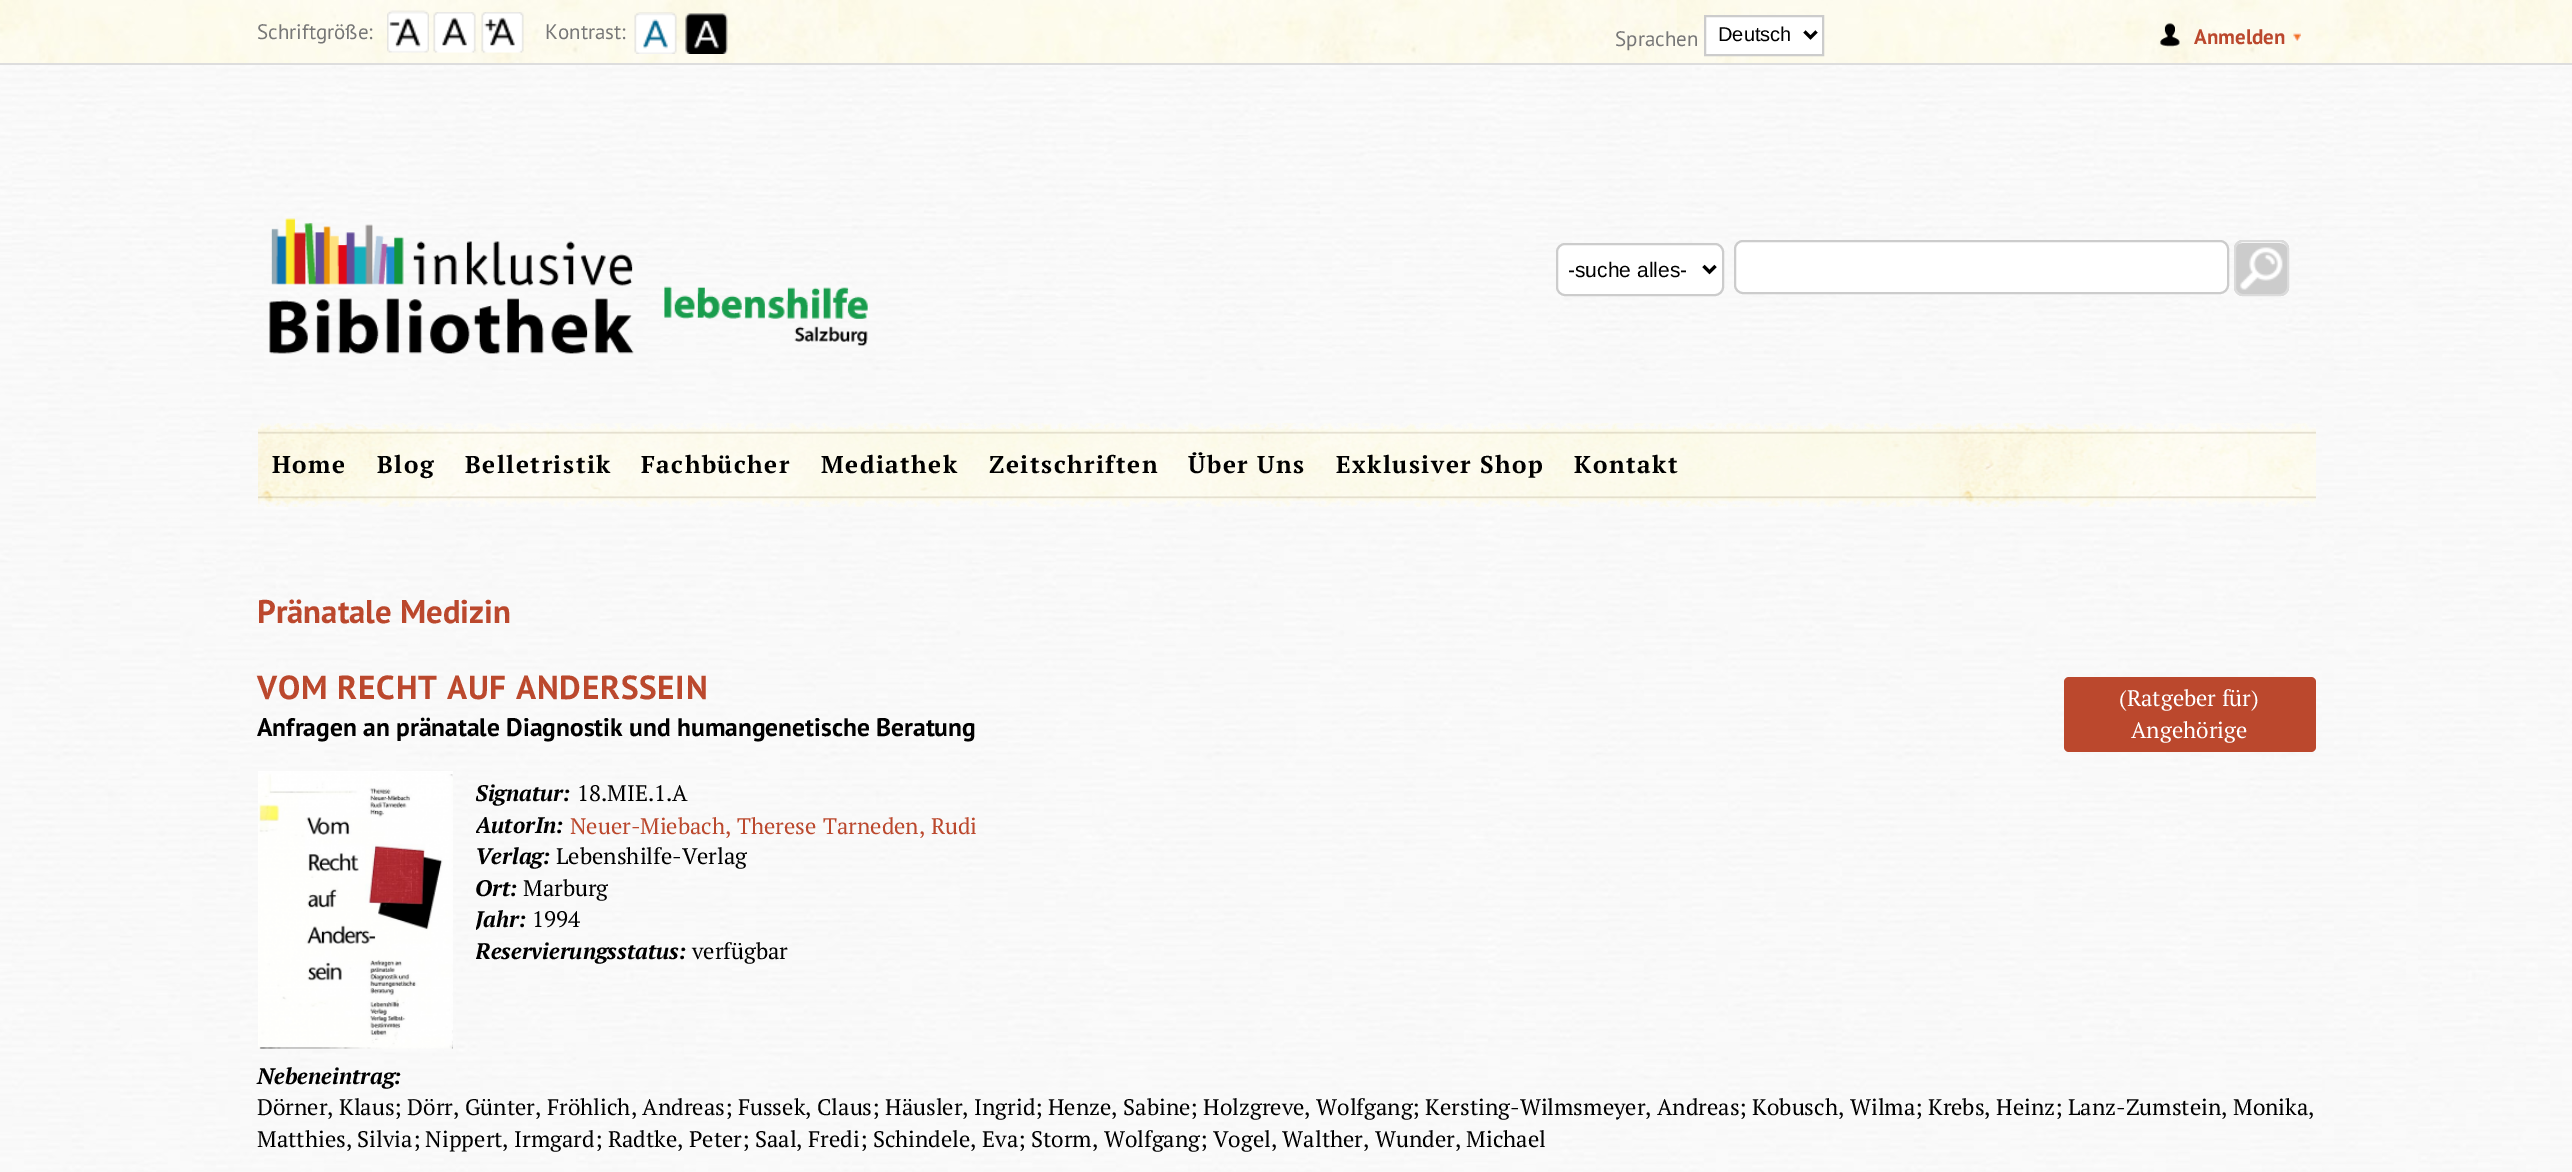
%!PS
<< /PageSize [2572 1172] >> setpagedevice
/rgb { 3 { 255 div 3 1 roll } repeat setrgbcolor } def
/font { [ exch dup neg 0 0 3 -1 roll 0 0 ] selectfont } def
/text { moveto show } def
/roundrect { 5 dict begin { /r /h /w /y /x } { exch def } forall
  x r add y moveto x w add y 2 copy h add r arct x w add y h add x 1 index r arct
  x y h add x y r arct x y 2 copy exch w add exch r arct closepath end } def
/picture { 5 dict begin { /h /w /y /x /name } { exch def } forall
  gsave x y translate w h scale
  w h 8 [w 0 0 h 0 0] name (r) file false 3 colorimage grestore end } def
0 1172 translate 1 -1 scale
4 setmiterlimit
255 255 255 rgb
0 0 2572 1172 rectfill
(img_01.rgb) 0 65 2572 1107 picture
(img_02.rgb) 0 0 2572 63 picture
221 221 221 rgb
0 63 2572 2 rectfill
(img_03.rgb) 387 10 42 43 picture
(img_04.rgb) 433 12 43 41 picture
(img_05.rgb) 481 12 43 41 picture
(img_06.rgb) 634 12 43 42 picture
(img_07.rgb) 685 13 43 41 picture
255 255 255 rgb
1705 16 moveto 118 0 rlineto 0 39 rlineto -118 0 rlineto closepath gsave fill grestore
204 204 204 rgb
2 setlinewidth
stroke
0 0 0 rgb
3 setlinewidth
1804.5 31.5 moveto 6 6 rlineto 6 -6 rlineto stroke
(img_08.rgb) 2160 23 20 24 picture
(img_09.rgb) 2293 33 8 8 picture
255 255 255 rgb
1557 244 166 51 8 roundrect gsave fill grestore
204 204 204 rgb
2 setlinewidth
stroke
0 0 0 rgb
3 setlinewidth
1703.5 266 moveto 6 6 rlineto 6 -6 rlineto stroke
255 255 255 rgb
1735 241 493 52 8 roundrect gsave fill grestore
204 204 204 rgb
2 setlinewidth
stroke
2234 240 55 56 9 roundrect fill
(img_10.rgb) 2240 247 43 43 picture
255 255 255 rgb
2242 243 moveto 38 0 rlineto 4 0 8 3 8 7 rcurveto 0 -4 -4 -8 -8 -8 rcurveto -37 0 rlineto -4 0 -8 4 -8 8 rcurveto 0 -4 3 -7 7 -7 rcurveto closepath fill
219 219 219 rgb
2235 241 53 54 8 roundrect stroke
(img_11.rgb) 269 218 599 136 picture
(img_12.rgb) 258 423 2058 84 picture
187 72 45 rgb
2064 677 252 75 5 roundrect fill
(img_13.rgb) 258 771 195 278 picture
/PTSans-Regular 21 font
119 119 119 rgb
(Schriftgröße:) 257 39 text
(Kontrast:) 545 39 text
(Sprachen) 1615 46 text
/LiberationSans-Regular 20 font
0 0 0 rgb
(Deutsch) 1718 41 text
/PTSans-Bold 21 font
187 72 45 rgb
(Anmelden) 2194 44 text
/LiberationSans-Regular 21 font
0 0 0 rgb
(-suche alles-) 1568 277 text
/PTSerif-Bold 24.25 font
272 473 moveto 1.5 0 (Home) ashow
377 473 moveto 1.5 0 (Blog) ashow
465 473 moveto 1.5 0 (Belletristik) ashow
641 473 moveto 1.5 0 (Fachbücher) ashow
821 473 moveto 1.5 0 (Mediathek) ashow
989 473 moveto 1.5 0 (Zeitschriften) ashow
1188 473 moveto 1.5 0 (Über Uns) ashow
1336 473 moveto 1.5 0 (Exklusiver Shop) ashow
1574 473 moveto 1.5 0 (Kontakt) ashow
/PTSans-Bold 32.75 font
187 72 45 rgb
(Pränatale Medizin) 257 623 text
/PTSans-Bold 33.25 font
257 699 moveto 0.75 0 (VOM RECHT AUF ANDERSSEIN) ashow
/PTSans-Bold 25.5 font
0 0 0 rgb
(Anfragen an pränatale Diagnostik und humangenetische Beratung) 257 736 text
/PTSerif-Regular 22.5 font
255 255 255 rgb
(\(Ratgeber für\)) 2119 706 text
(Angehörige) 2131 738 text
gsave
476 777 508 189 rectclip
/PTSerif-BoldItalic 22.5 font
0 0 0 rgb
(Signatur:) 475 801 text
grestore
0 0 0 rgb
(18.MIE.1.A) 577 801 text
gsave
476 777 508 189 rectclip
/PTSerif-BoldItalic 22.5 font
(AutorIn:) 475 833 text
grestore
187 72 45 rgb
(Neuer-Miebach, Therese) 570 834 text
(Tarneden, Rudi) 823 834 text
/PTSerif-BoldItalic 22.5 font
0 0 0 rgb
(Verlag:) 475 864 text
/PTSerif-Regular 22.5 font
(Lebenshilfe-Verlag) 556 864 text
/PTSerif-BoldItalic 22.5 font
(Ort:) 475 896 text
/PTSerif-Regular 22.5 font
(Marburg) 523 896 text
gsave
476 777 508 189 rectclip
/PTSerif-BoldItalic 22.5 font
(Jahr:) 475 927 text
grestore
(1994) 532 927 text
gsave
476 777 508 189 rectclip
/PTSerif-BoldItalic 22.5 font
(Reservierungsstatus:) 475 959 text
grestore
(verfügbar) 692 959 text
/PTSerif-BoldItalic 22.5 font
(Nebeneintrag:) 257 1084 text
/PTSerif-Regular 22.5 font
(Dörner, Klaus; Dörr, Günter, Fröhlich, Andreas; Fussek, Claus; Häusler, Ingrid; Henze, Sabine; Holzgreve, Wolfgang; Kersting-Wilmsmeyer, Andreas; Kobusch, Wilma; Krebs, Heinz; Lanz-Zumstein, Monika,) 257 1115 text
(Matthies, Silvia; Nippert, Irmgard; Radtke, Peter; Saal, Fredi; Schindele, Eva; Storm, Wolfgang; Vogel, Walther, Wunder, Michael) 257 1147 text
showpage
